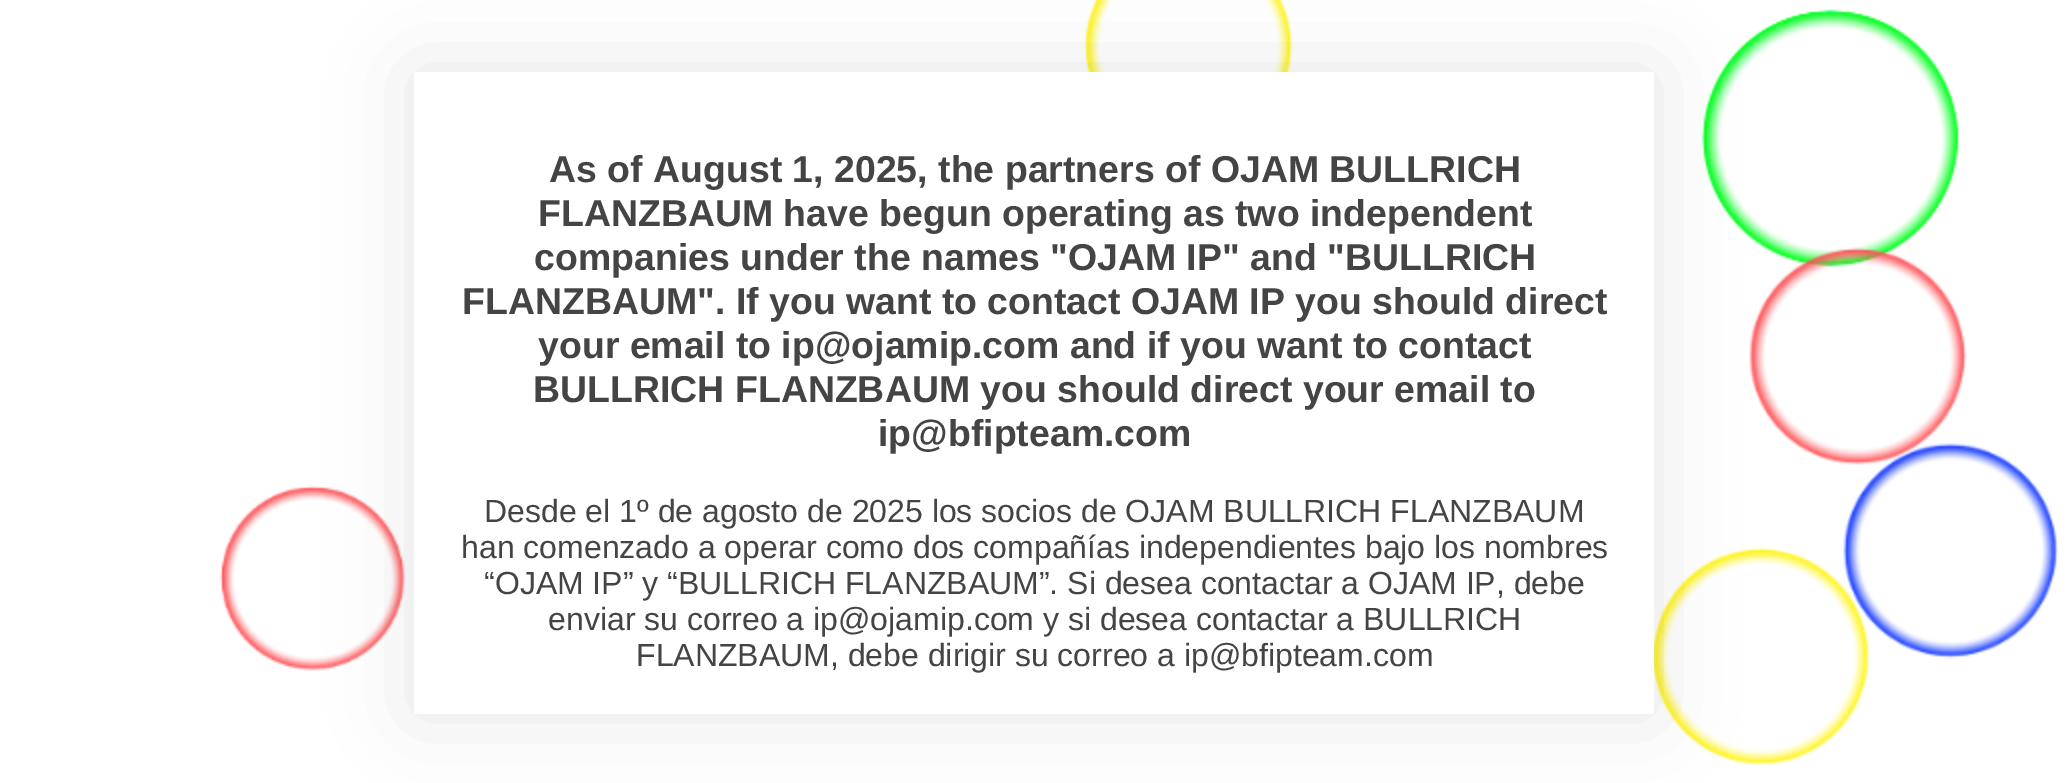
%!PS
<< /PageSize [2068 783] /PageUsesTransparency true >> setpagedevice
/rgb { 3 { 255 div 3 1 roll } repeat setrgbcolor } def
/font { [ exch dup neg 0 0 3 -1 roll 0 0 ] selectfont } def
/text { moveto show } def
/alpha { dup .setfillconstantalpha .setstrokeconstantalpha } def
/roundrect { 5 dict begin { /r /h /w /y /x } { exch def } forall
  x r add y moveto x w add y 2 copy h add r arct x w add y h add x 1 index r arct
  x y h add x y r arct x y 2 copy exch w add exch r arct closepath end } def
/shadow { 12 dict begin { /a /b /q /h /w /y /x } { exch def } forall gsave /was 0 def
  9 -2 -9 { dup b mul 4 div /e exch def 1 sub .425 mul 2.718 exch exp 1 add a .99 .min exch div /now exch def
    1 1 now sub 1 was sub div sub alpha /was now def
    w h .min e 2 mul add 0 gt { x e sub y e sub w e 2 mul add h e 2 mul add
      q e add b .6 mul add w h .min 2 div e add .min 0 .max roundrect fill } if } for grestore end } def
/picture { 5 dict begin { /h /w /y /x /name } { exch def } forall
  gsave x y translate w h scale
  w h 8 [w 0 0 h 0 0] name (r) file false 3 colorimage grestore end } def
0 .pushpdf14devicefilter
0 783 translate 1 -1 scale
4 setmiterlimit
255 255 255 rgb
0 0 2068 783 rectfill
(img_01.rgb) 219 0 1840 765 picture
0 0 0 rgb
414 72 1240 642 0 40 0.1 shadow
255 255 255 rgb
414 72 1240 642 rectfill
/LiberationSans-Bold 37.45 font
68 68 68 rgb
(As of August 1, 2025, the partners of OJAM BULLRICH) 549 182 text
(FLANZBAUM have begun operating as two independent) 538 226 text
(companies under the names "OJAM IP" and "BULLRICH) 534 270 text
(FLANZBAUM". If you want to contact OJAM IP you should direct) 462 314 text
(your email to ip@ojamip.com and if you want to contact) 538 358 text
(BULLRICH FLANZBAUM you should direct your email to) 533 402 text
(ip@bfipteam.com) 878 446 text
/LiberationSans-Regular 32 font
(Desde el 1º de agosto de 2025 los socios de OJAM BULLRICH FLANZBAUM) 484 522 text
(han comenzado a operar como dos compañías independientes bajo los nombres) 461 558 text
(“OJAM IP” y “BULLRICH FLANZBAUM”. Si desea contactar a OJAM IP, debe) 484 594 text
(enviar su correo a ip@ojamip.com y si desea contactar a BULLRICH) 548 630 text
(FLANZBAUM, debe dirigir su correo a ip@bfipteam.com) 636 666 text
.poppdf14devicefilter showpage
